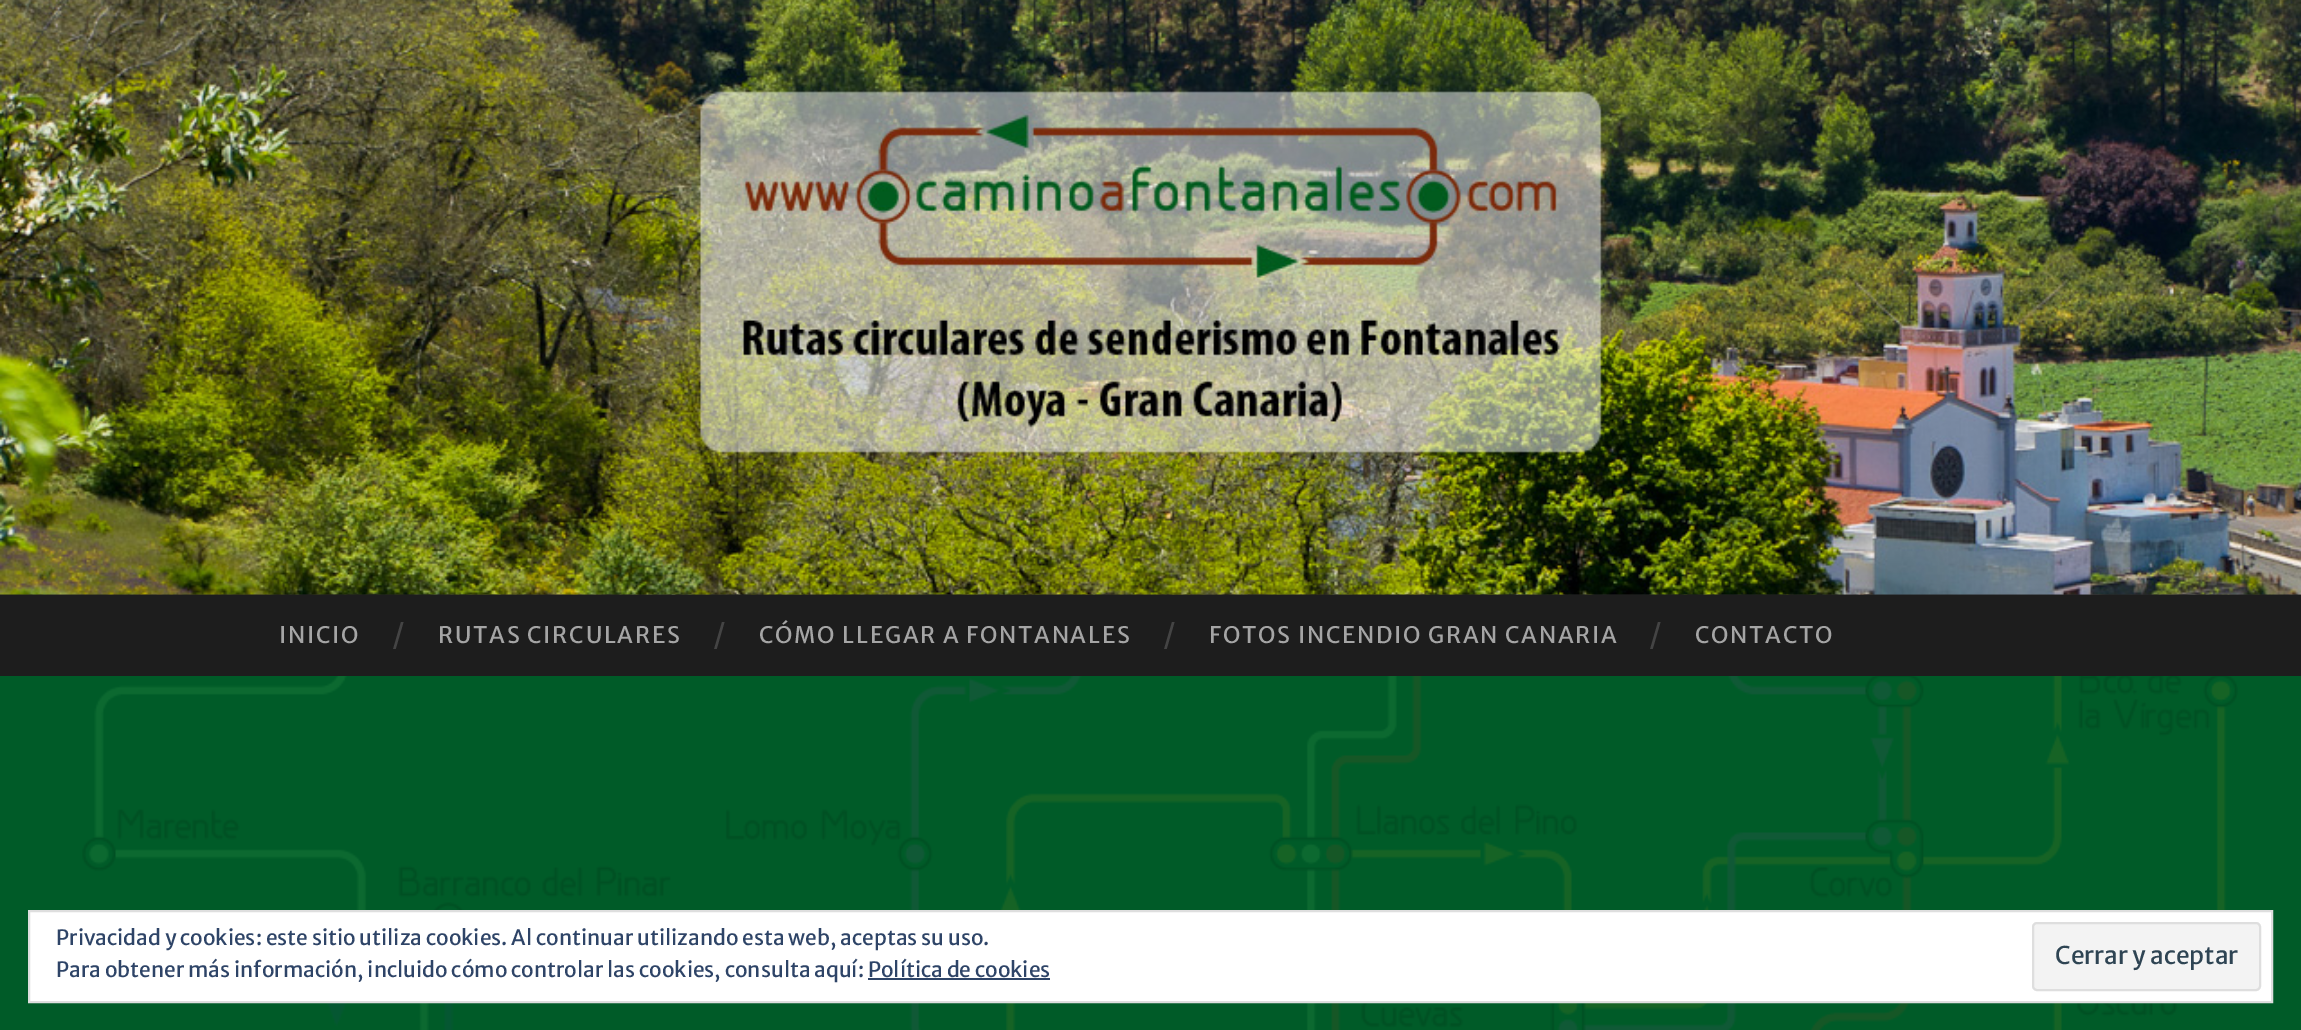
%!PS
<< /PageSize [2301 1030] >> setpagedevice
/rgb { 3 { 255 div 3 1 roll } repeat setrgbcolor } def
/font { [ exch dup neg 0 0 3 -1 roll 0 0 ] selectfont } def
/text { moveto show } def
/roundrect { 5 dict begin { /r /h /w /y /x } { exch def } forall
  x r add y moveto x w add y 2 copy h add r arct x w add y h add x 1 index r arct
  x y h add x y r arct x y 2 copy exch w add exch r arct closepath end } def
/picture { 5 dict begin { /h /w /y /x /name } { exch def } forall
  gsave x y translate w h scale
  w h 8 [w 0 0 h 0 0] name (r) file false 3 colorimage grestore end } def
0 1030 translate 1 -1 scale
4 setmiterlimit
0 91 40 rgb
0 0 2301 1030 rectfill
(img_01.rgb) 82 676 2156 354 picture
38 38 38 rgb
0 594 2301 1 rectfill
(img_02.rgb) 0 0 2301 595 picture
29 29 29 rgb
0 595 2301 81 rectfill
255 255 255 rgb
29 911 moveto 2243 0 rlineto 0 91 rlineto -2243 0 rlineto closepath gsave fill grestore
222 222 222 rgb
2 setlinewidth
stroke
243 243 243 rgb
2033 923 227 67 4 roundrect gsave fill grestore
222 222 222 rgb
stroke
46 68 103 rgb
868 978 182 2 rectfill
/MerriweatherSans-Regular 22.75 font
165 165 165 rgb
279 643 moveto 1.75 0 (INICIO) ashow
/MerriweatherSans-Regular 28 font
68 68 68 rgb
(/) 392 644 text
/MerriweatherSans-Regular 22.75 font
165 165 165 rgb
438 643 moveto 1.75 0 (RUTAS CIRCULARES) ashow
/MerriweatherSans-Regular 28 font
68 68 68 rgb
(/) 713 644 text
/MerriweatherSans-Regular 22.75 font
165 165 165 rgb
759 643 moveto 1.75 0 (CÓMO LLEGAR A FONTANALES) ashow
/MerriweatherSans-Regular 28 font
68 68 68 rgb
(/) 1163 644 text
/MerriweatherSans-Regular 22.75 font
165 165 165 rgb
1209 643 moveto 1.75 0 (FOTOS INCENDIO GRAN CANARIA) ashow
/MerriweatherSans-Regular 28 font
68 68 68 rgb
(/) 1649 644 text
/MerriweatherSans-Regular 22.75 font
165 165 165 rgb
1695 643 moveto 1.75 0 (CONTACTO) ashow
/MerriweatherSans-Regular 21 font
46 68 103 rgb
(Privacidad y cookies: este sitio utiliza cookies. Al continuar utilizando esta web, aceptas su uso.) 56 945 text
(Para obtener más información, incluido cómo controlar las cookies, consulta aquí: Política de cookies) 56 977 text
/MerriweatherSans-Regular 24.5 font
46 68 83 rgb
(Cerrar y aceptar) 2055 964 text
showpage
